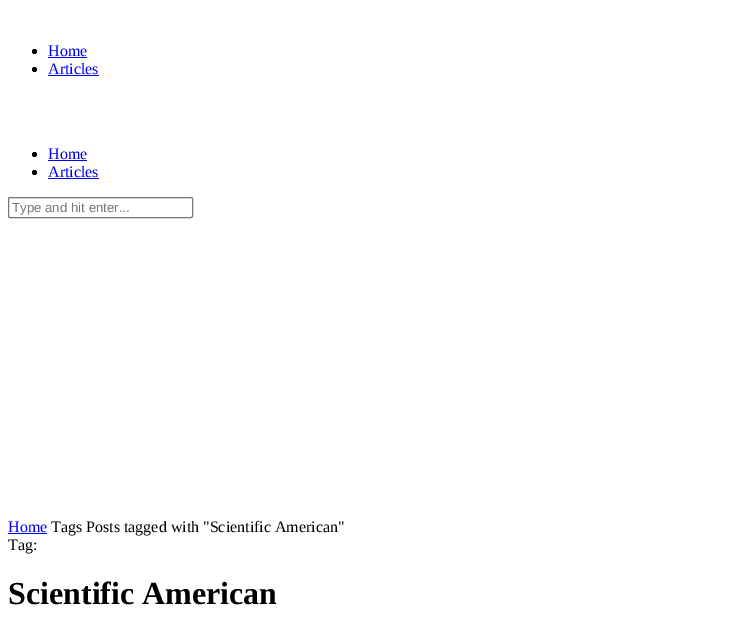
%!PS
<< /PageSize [749 630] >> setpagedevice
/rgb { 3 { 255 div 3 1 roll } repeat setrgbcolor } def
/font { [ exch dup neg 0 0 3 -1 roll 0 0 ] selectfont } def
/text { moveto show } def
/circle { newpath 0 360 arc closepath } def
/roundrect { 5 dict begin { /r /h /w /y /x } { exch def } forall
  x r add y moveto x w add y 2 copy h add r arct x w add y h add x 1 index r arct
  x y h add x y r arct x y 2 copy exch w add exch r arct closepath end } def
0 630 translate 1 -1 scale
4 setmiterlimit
255 255 255 rgb
0 0 749 630 rectfill
0 0 0 rgb
34.5 51.5 2.5 circle fill
0 0 238 rgb
48 57 39 1 rectfill
0 0 0 rgb
34.5 69.5 2.5 circle fill
0 0 238 rgb
48 75 51 1 rectfill
0 0 0 rgb
34.5 154.5 2.5 circle fill
0 0 238 rgb
48 160 39 1 rectfill
0 0 0 rgb
34.5 172.5 2.5 circle fill
0 0 238 rgb
48 178 51 1 rectfill
118 118 118 rgb
8.5 197.5 184 20 1.5 roundrect stroke
0 0 238 rgb
8 533 39 1 rectfill
/LiberationSerif-Regular 16 font
(Home) 48 56 text
(Articles) 48 74 text
(Home) 48 159 text
(Articles) 48 177 text
/LiberationSans-Regular 13.25 font
117 117 117 rgb
(Type and hit enter...) 12 212 text
/LiberationSerif-Regular 16 font
0 0 238 rgb
(Home) 8 532 text
0 0 0 rgb
(Tags Posts tagged with "Scientific American") 51 532 text
(Tag:) 8 550 text
/LiberationSerif-Bold 32 font
(Scientific American) 8 604 text
showpage
